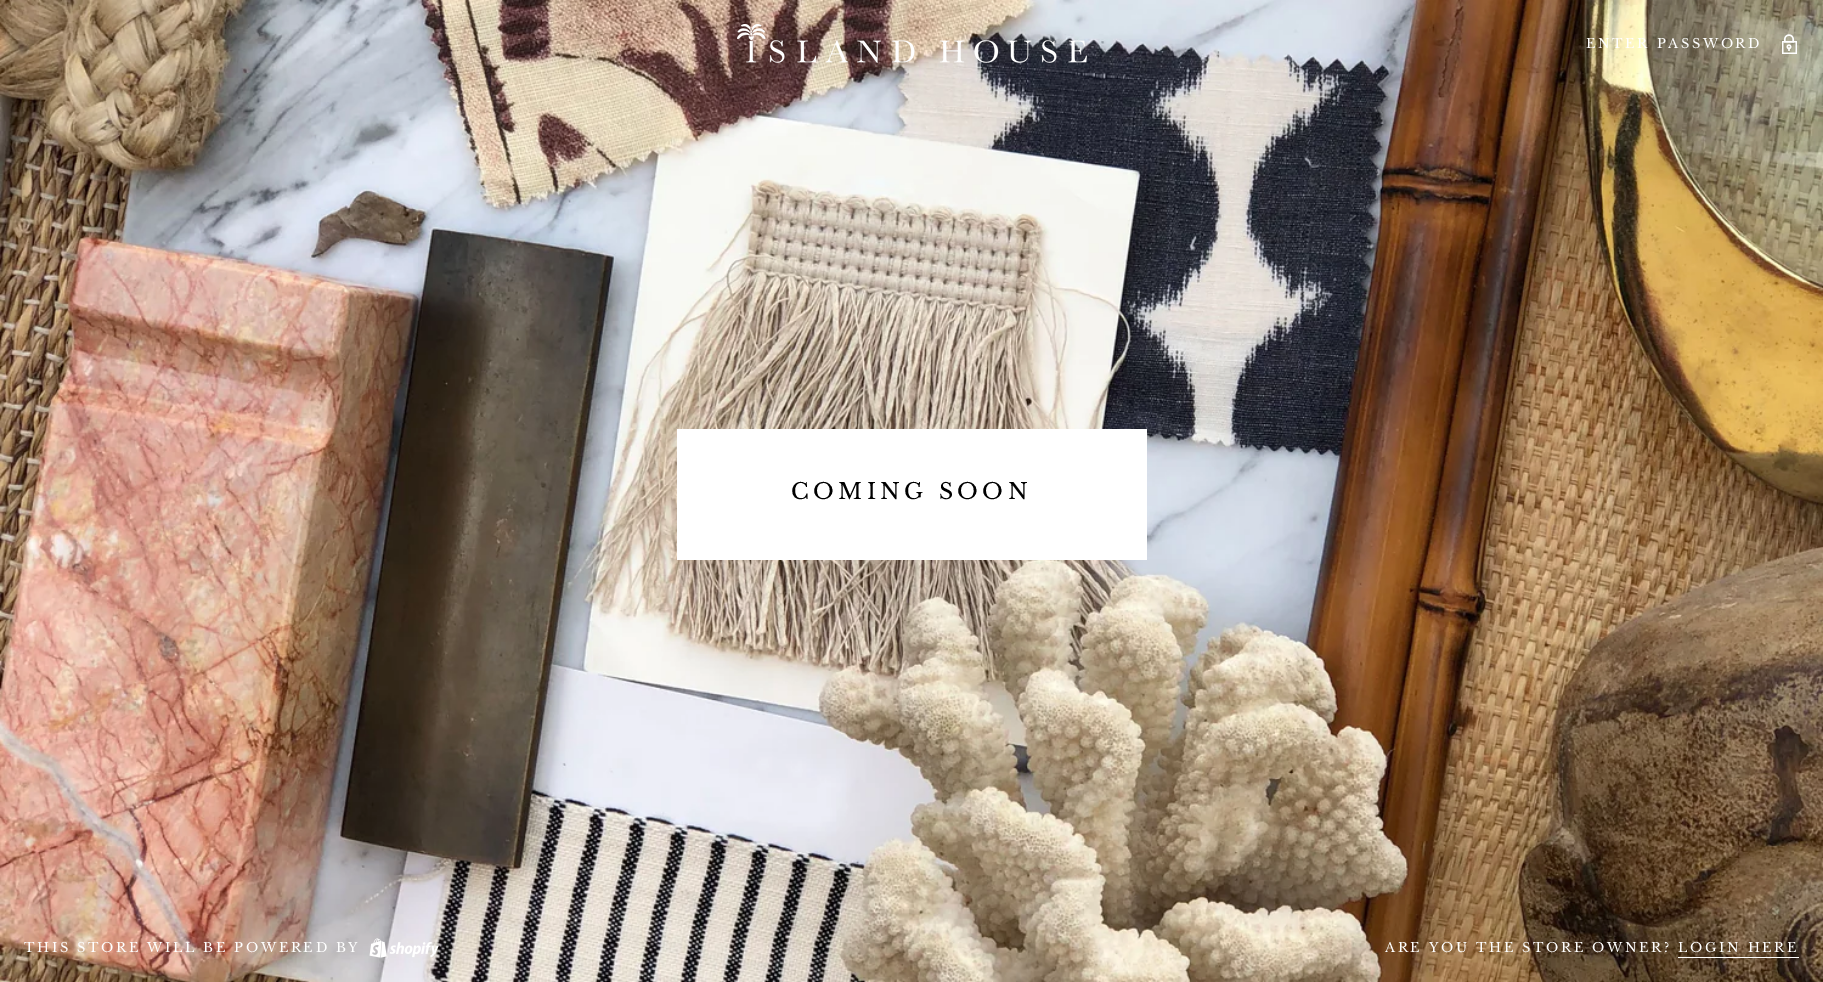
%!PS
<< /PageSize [1823 982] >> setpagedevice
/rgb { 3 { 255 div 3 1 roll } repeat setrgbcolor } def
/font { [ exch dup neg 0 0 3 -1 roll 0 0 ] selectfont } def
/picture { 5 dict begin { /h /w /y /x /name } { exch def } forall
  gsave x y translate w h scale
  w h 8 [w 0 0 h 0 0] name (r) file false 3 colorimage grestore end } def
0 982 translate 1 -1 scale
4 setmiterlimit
255 255 255 rgb
0 0 1823 982 rectfill
(img_01.rgb) 0 0 1823 982 picture
(img_02.rgb) 737 24 350 39 picture
(img_03.rgb) 1782 34 15 20 picture
677 429 470 131 rectfill
(img_04.rgb) 369 938 70 20 picture
1678 957 121 1 rectfill
/LibreBaskerville-Regular 13 font
1586 48 moveto 2.6 0 (ENTER PASSWORD) ashow
/LibreBaskerville-Regular 22 font
0 0 0 rgb
791 499 moveto 4.4 0 (COMING SOON) ashow
/LibreBaskerville-Regular 13 font
255 255 255 rgb
24 952 moveto 2.6 0 (THIS STORE WILL BE POWERED BY) ashow
1385 952 moveto 2.6 0 (ARE YOU THE STORE OWNER? LOGIN HERE) ashow
showpage
